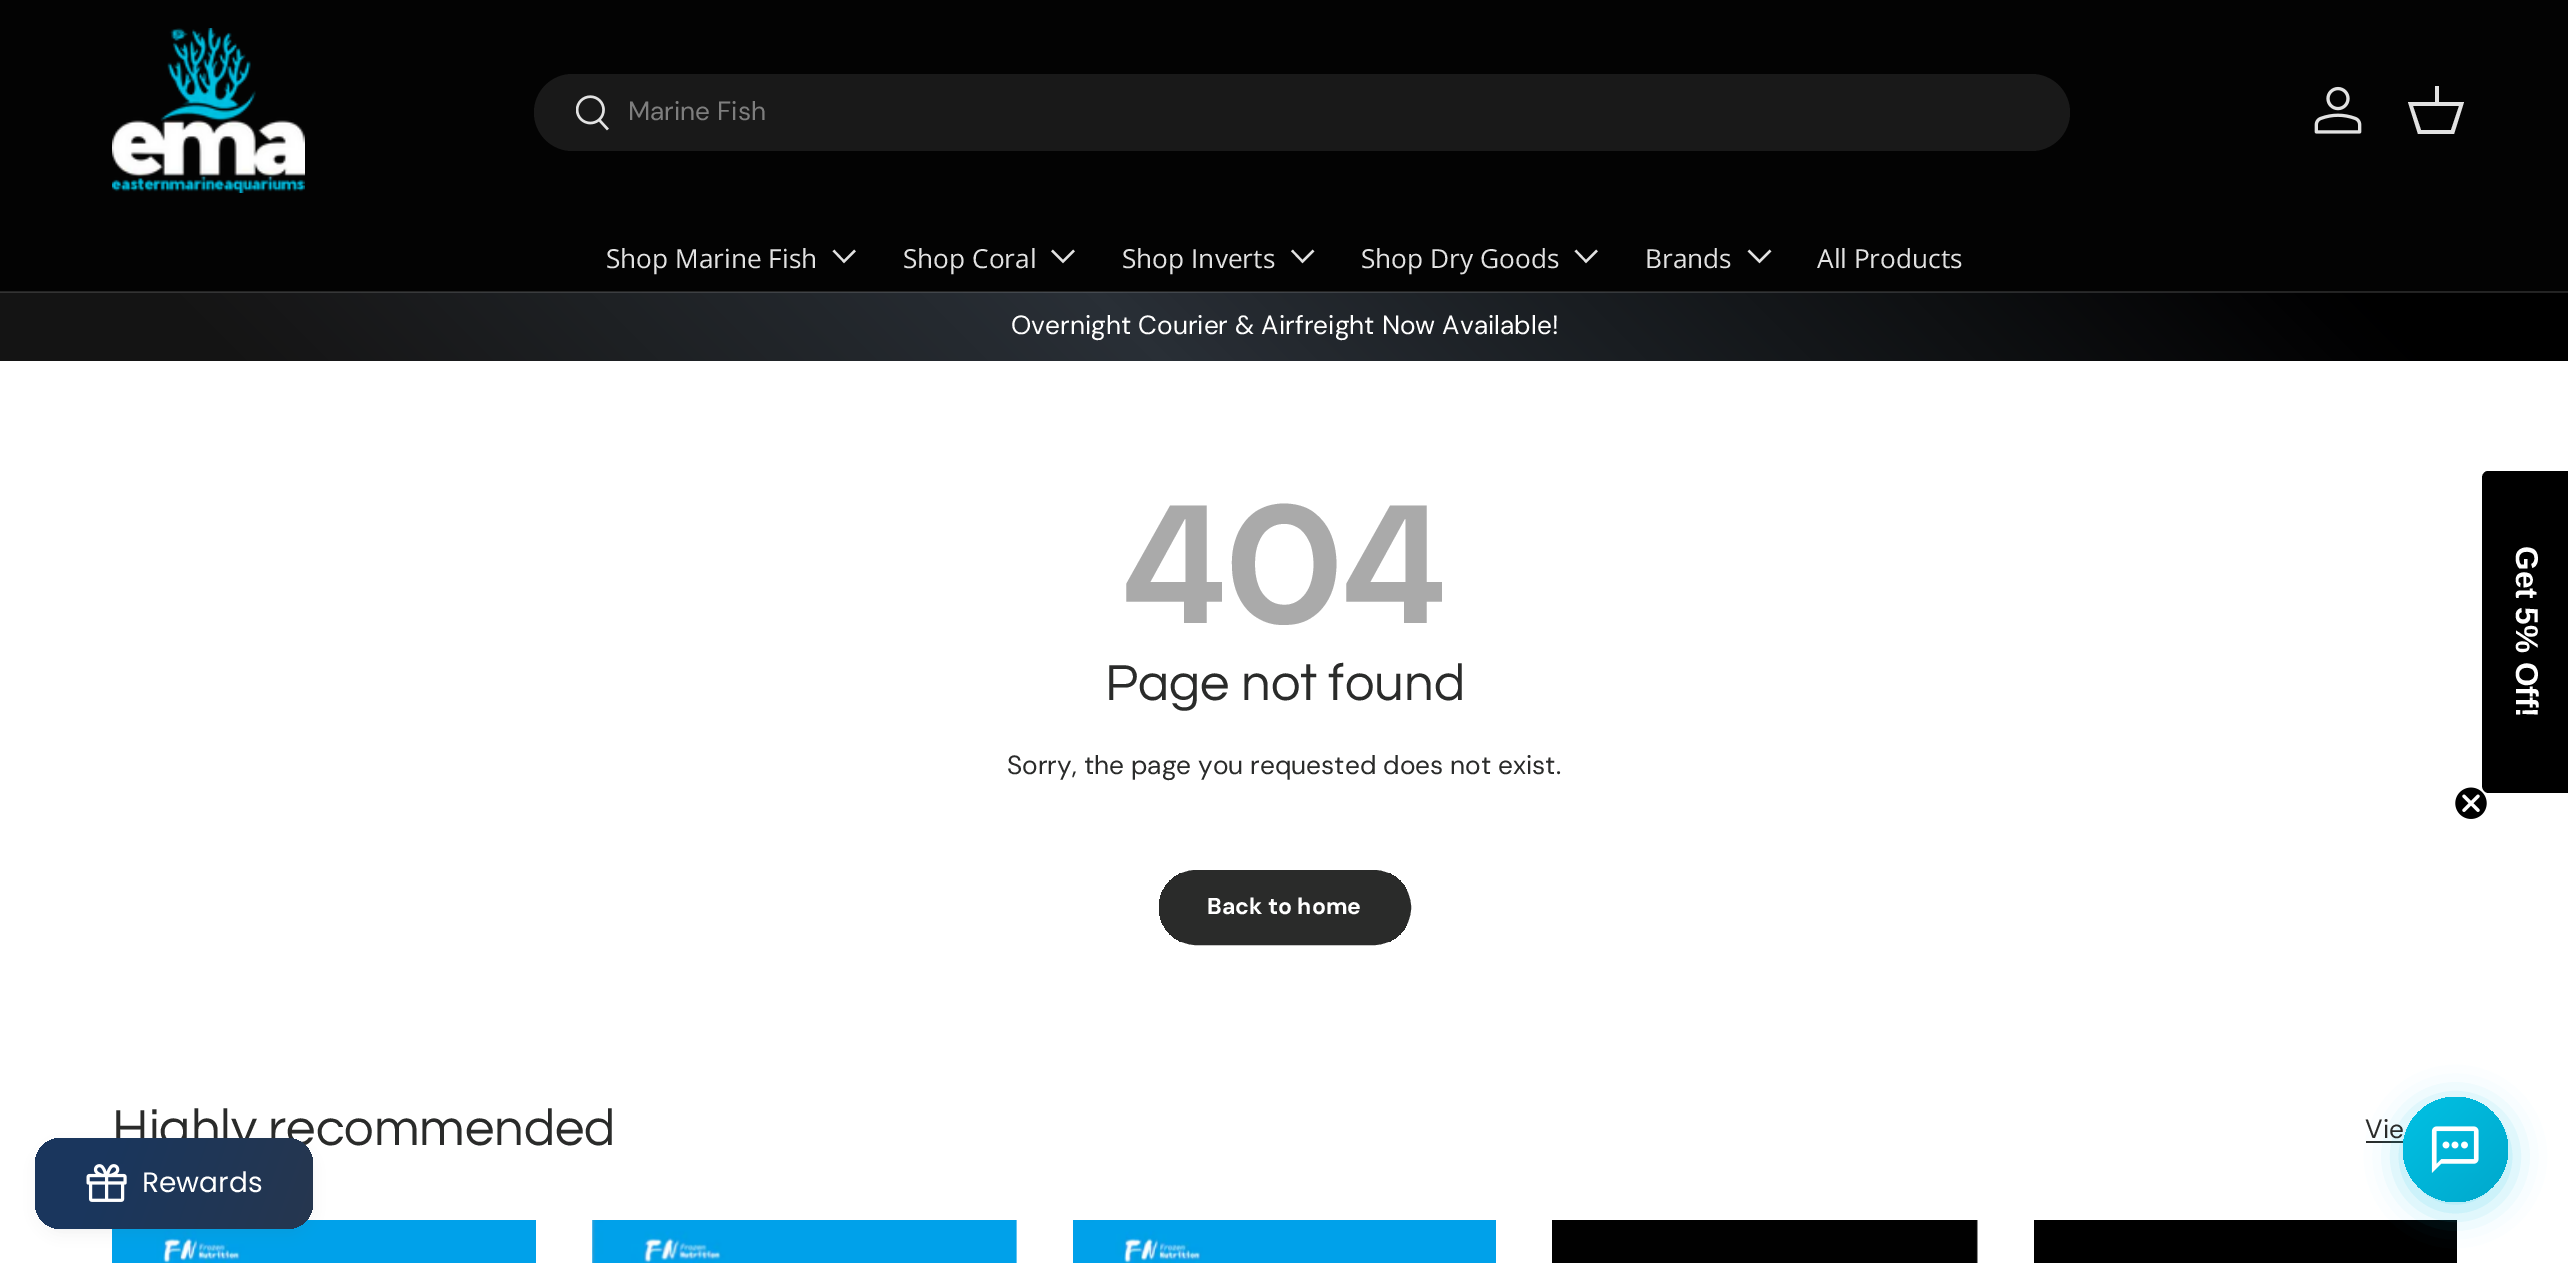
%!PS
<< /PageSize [2568 1263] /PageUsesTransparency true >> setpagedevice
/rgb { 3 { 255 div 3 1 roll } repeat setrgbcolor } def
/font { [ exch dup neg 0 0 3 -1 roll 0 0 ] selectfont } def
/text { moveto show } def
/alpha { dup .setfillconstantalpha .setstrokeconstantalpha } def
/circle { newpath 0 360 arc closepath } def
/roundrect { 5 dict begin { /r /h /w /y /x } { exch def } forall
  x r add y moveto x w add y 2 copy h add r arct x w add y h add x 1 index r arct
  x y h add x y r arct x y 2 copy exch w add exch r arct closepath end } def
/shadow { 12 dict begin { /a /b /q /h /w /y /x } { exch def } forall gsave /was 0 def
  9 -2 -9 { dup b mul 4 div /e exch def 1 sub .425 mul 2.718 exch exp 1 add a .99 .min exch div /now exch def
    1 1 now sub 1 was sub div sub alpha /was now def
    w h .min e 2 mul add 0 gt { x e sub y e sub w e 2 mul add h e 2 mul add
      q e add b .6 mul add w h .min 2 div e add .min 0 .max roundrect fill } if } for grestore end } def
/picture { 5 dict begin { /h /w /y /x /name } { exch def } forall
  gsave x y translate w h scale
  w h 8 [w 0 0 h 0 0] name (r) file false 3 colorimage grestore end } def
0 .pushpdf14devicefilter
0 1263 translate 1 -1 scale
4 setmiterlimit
255 255 255 rgb
0 0 2568 1263 rectfill
3 3 3 rgb
0 0 2568 291 rectfill
36 36 36 rgb
0 291 2568 1 rectfill
(img_01.rgb) 112 28 193 165 picture
25 25 25 rgb
534 74 1536 77 38.5 roundrect fill
(img_02.rgb) 576 95 33 36 picture
(img_03.rgb) 2314 86 48 48 picture
226 226 226 rgb
2435 102 moveto 0 -16 rlineto 4 0 rlineto 0 16 rlineto 25 0 rlineto -10 32 rlineto -36 0 rlineto -10 -32 rlineto closepath 2413 106 moveto 8 24 rlineto 30 0 rlineto 8 -24 rlineto closepath fill
2.2 setlinewidth
855 250.5 moveto -11 11 rlineto -10.5 -11 rlineto stroke
1074 250.5 moveto -11 11 rlineto -11 -11 rlineto stroke
1313.5 250.5 moveto -11 11 rlineto -10.5 -11 rlineto stroke
1597 250.5 moveto -11 11 rlineto -10.5 -11 rlineto stroke
1770.5 250.5 moveto -11 11 rlineto -11 -11 rlineto stroke
gsave 0 293 moveto 2568 0 rlineto 0 68 rlineto -2568 0 rlineto closepath clip newpath
<< /ShadingType 2 /ColorSpace /DeviceRGB /Coords [1944 -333 625 986] /Extend [true true] /Function << /FunctionType 3 /Domain [0 1] /Functions [<< /FunctionType 2 /Domain [0 1] /C0 [0 0 0] /C1 [0 0 0] /N 1 >> << /FunctionType 2 /Domain [0 1] /C0 [0 0 0] /C1 [0.161 0.184 0.212] /N 1 >> << /FunctionType 2 /Domain [0 1] /C0 [0.161 0.184 0.212] /C1 [0.078 0.078 0.078] /N 1 >> << /FunctionType 2 /Domain [0 1] /C0 [0.078 0.078 0.078] /C1 [0.078 0.078 0.078] /N 1 >>] /Bounds [0.08 0.56 0.92] /Encode [0 1 0 1 0 1 0 1] >> >> shfill grestore
gsave 0 292 moveto 2568 0 rlineto 0 1 rlineto -2568 0 rlineto closepath clip newpath
<< /ShadingType 2 /ColorSpace /DeviceRGB /Coords [1944 -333 625 986] /Extend [true true] /Function << /FunctionType 3 /Domain [0 1] /Functions [<< /FunctionType 2 /Domain [0 1] /C0 [0.133 0.133 0.133] /C1 [0.133 0.133 0.133] /N 1 >> << /FunctionType 2 /Domain [0 1] /C0 [0.133 0.133 0.133] /C1 [0.271 0.29 0.314] /N 1 >> << /FunctionType 2 /Domain [0 1] /C0 [0.271 0.29 0.314] /C1 [0.2 0.2 0.2] /N 1 >> << /FunctionType 2 /Domain [0 1] /C0 [0.2 0.2 0.2] /C1 [0.2 0.2 0.2] /N 1 >>] /Bounds [0.08 0.56 0.92] /Encode [0 1 0 1 0 1 0 1] >> >> shfill grestore
gsave
1159 870 252 75 37.5 roundrect clip newpath
gsave 1159 873 moveto 248 0 rlineto 0 69 rlineto -248 0 rlineto closepath clip newpath
<< /ShadingType 2 /ColorSpace /DeviceRGB /Coords [685 819 1394 996] /Extend [true true] /Function << /FunctionType 3 /Domain [0 1] /Functions [<< /FunctionType 2 /Domain [0 1] /C0 [0.322 0.325 0.322] /C1 [0.322 0.325 0.322] /N 1 >> << /FunctionType 2 /Domain [0 1] /C0 [0.165 0.169 0.165] /C1 [0.165 0.169 0.165] /N 1 >>] /Bounds [0.6] /Encode [0 1 0 1] >> >> shfill grestore
grestore
42 43 42 rgb
4 setlinewidth
1161 872 248 71 35.5 roundrect stroke
2366 1141 38 2 rectfill
(img_04.rgb) 112 1220 424 43 picture
(img_05.rgb) 592 1220 425 43 picture
(img_06.rgb) 1073 1220 423 43 picture
(img_07.rgb) 1552 1220 426 43 picture
0 0 0 rgb
2034 1220 423 43 rectfill
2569 471 moveto 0 322 rlineto -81 0 rlineto -3 0 -6 -3 -6 -7 rcurveto 0 -308 rlineto 0 -4 3 -7 6 -7 rcurveto closepath fill
(img_08.rgb) 2455 787 32 32 picture
68 68 68 rgb
39 1148 271 84 23 7 0.08 shadow
0 193 228 rgb
2403 1104 105 105 52.5 17.5 0.4 shadow
gsave 2455.5 1149.5 52.5 circle clip newpath
<< /ShadingType 2 /ColorSpace /DeviceRGB /Coords [2403 1097 2508 1202] /Extend [true true] /Function << /FunctionType 2 /Domain [0 1] /C0 [0 0.757 0.894] /C1 [0 0.659 0.8] /N 1 >> >> shfill grestore
(img_10.rgb) 2431 1126 48 47 picture
/DMSans-Regular 26.25 font
126 126 126 rgb
(Marine Fish) 628 120 text
/OpenSans-Regular 26.25 font
226 226 226 rgb
(Shop Marine Fish) 606 268 text
(Shop Coral) 903 268 text
(Shop Inverts) 1122 268 text
(Shop Dry Goods) 1361 268 text
(Brands) 1645 268 text
(All Products) 1817 268 text
/DMSans-Regular 26.25 font
255 255 255 rgb
(Overnight Courier & Airfreight Now Available!) 1011 334 text
/DMSans-Bold 168 font
170 170 170 rgb
(404) 1122 623 text
/Questrial-Regular 52.5 font
42 43 42 rgb
(Page not found) 1105 700 text
/DMSans-Regular 26.25 font
(Sorry, the page you requested does not exist.) 1007 774 text
/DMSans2-Bold 23 font
255 255 255 rgb
(Back to home) 1207 914 text
/Questrial-Regular 52.5 font
42 43 42 rgb
(Highly recommended) 112 1145 text
/DMSans-Regular 26.25 font
(Vie) 2365 1138 text
/LiberationSans-Bold 31.5 font
255 255 255 rgb
gsave 2516 546 translate 90 rotate 0 0 moveto (Get 5% Off!) show grestore
gsave 35 1138 278 91 26 roundrect clip newpath
<< /ShadingType 2 /ColorSpace /DeviceRGB /Coords [36 1134 423 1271] /Extend [true true] /Function << /FunctionType 3 /Domain [0 1] /Functions [<< /FunctionType 2 /Domain [0 1] /C0 [0.102 0.212 0.365] /C1 [0.102 0.212 0.365] /N 1 >> << /FunctionType 2 /Domain [0 1] /C0 [0.102 0.212 0.365] /C1 [0.176 0.216 0.282] /N 1 >>] /Bounds [0.17] /Encode [0 1 0 1] >> >> shfill grestore
(img_09.rgb) 86 1164 41 38 picture
/Poppins-Regular 28 font
(Rewards) 142 1192 text
.poppdf14devicefilter showpage
